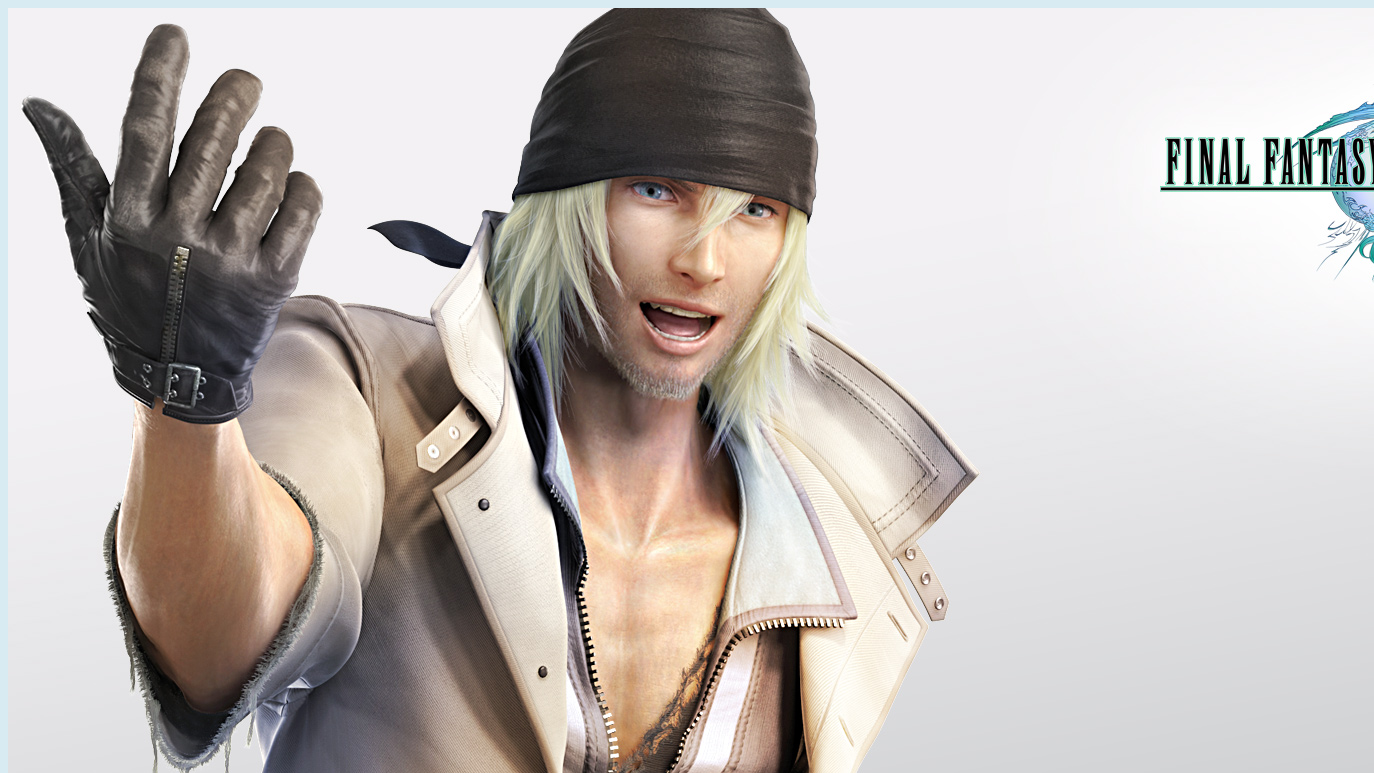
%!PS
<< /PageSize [1374 773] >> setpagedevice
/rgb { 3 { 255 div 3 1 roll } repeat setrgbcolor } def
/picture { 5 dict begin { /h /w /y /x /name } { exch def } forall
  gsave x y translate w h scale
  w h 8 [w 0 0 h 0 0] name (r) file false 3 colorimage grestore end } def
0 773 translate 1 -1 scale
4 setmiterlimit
216 235 242 rgb
0 0 1374 773 rectfill
(img_01.rgb) 8 8 1366 765 picture
showpage
